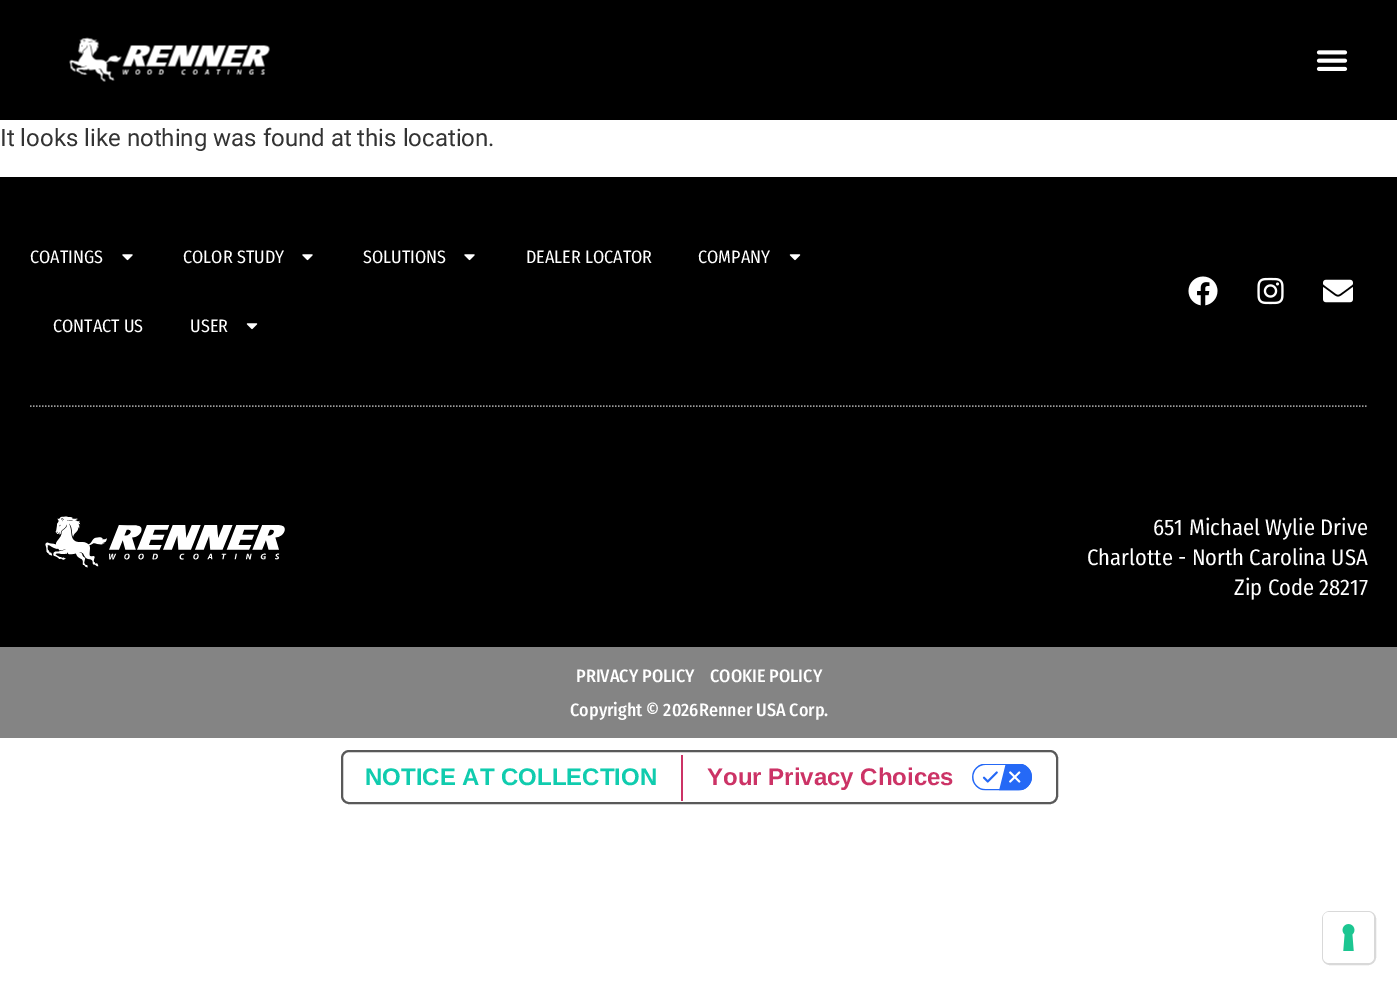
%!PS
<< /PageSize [1397 987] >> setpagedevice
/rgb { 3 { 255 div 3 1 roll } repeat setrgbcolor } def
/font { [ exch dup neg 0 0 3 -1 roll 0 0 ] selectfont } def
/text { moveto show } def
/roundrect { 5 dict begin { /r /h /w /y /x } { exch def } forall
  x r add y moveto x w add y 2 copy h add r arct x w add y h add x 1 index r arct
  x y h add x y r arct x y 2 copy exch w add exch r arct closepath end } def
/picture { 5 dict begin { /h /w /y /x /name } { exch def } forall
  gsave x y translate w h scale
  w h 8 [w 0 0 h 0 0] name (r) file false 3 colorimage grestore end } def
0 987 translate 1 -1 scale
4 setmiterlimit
255 255 255 rgb
0 0 1397 987 rectfill
0 0 0 rgb
0 0 1397 120 rectfill
(img_01.rgb) 69 37 201 45 picture
(img_02.rgb) 1316 50 32 21 picture
0 177 1397 470 rectfill
155 155 155 rgb
1.5 setlinewidth
[1.5 1.5] 0 setdash
30 406 moveto 1338 0 rlineto stroke
(img_03.rgb) 122 254 11 7 picture
(img_03.rgb) 302 254 11 7 picture
(img_03.rgb) 464 254 11 7 picture
(img_04.rgb) 789 254 12 7 picture
(img_04.rgb) 246 323 12 7 picture
(img_05.rgb) 1188 276 30 30 picture
(img_06.rgb) 1257 277 27 28 picture
(img_07.rgb) 1323 279 30 24 picture
(img_08.rgb) 45 516 240 52 picture
132 132 132 rgb
0 647 1397 91 rectfill
89 89 89 rgb
2 setlinewidth
[] 0 setdash
342 751 715 52 7 roundrect stroke
204 51 102 rgb
681 755 2 46 rectfill
(img_09.rgb) 972 764 60 27 picture
217 217 217 rgb
1323 912 52 52 7 roundrect stroke
255 255 255 rgb
1323 912 51 51 6 roundrect fill
(img_10.rgb) 1342 924 13 27 picture
/Roboto-Regular 24 font
51 51 51 rgb
(It looks like nothing was found at this location.) 0 146 text
/FiraSansCondensed-Regular 18 font
255 255 255 rgb
(COATINGS) 30 263 text
(COLOR STUDY) 183 263 text
(SOLUTIONS) 363 263 text
(DEALER LOCATOR) 526 263 text
(COMPANY) 698 263 text
(CONTACT US) 53 332 text
(USER) 190 332 text
/FiraSansCondensed-Regular 22.5 font
(651 Michael Wylie Drive) 1153 535 text
(Charlotte - North Carolina USA) 1087 565 text
(Zip Code 28217) 1234 595 text
/FiraSansCondensed-Medium 18 font
(PRIVACY POLICY) 576 682 text
(COOKIE POLICY) 710 682 text
(Copyright © 2026Renner USA Corp.) 570 716 text
/LiberationSans-Bold 24 font
16 204 174 rgb
(NOTICE AT COLLECTION) 365 785 text
204 51 102 rgb
(Your Privacy Choices) 707 785 text
showpage
